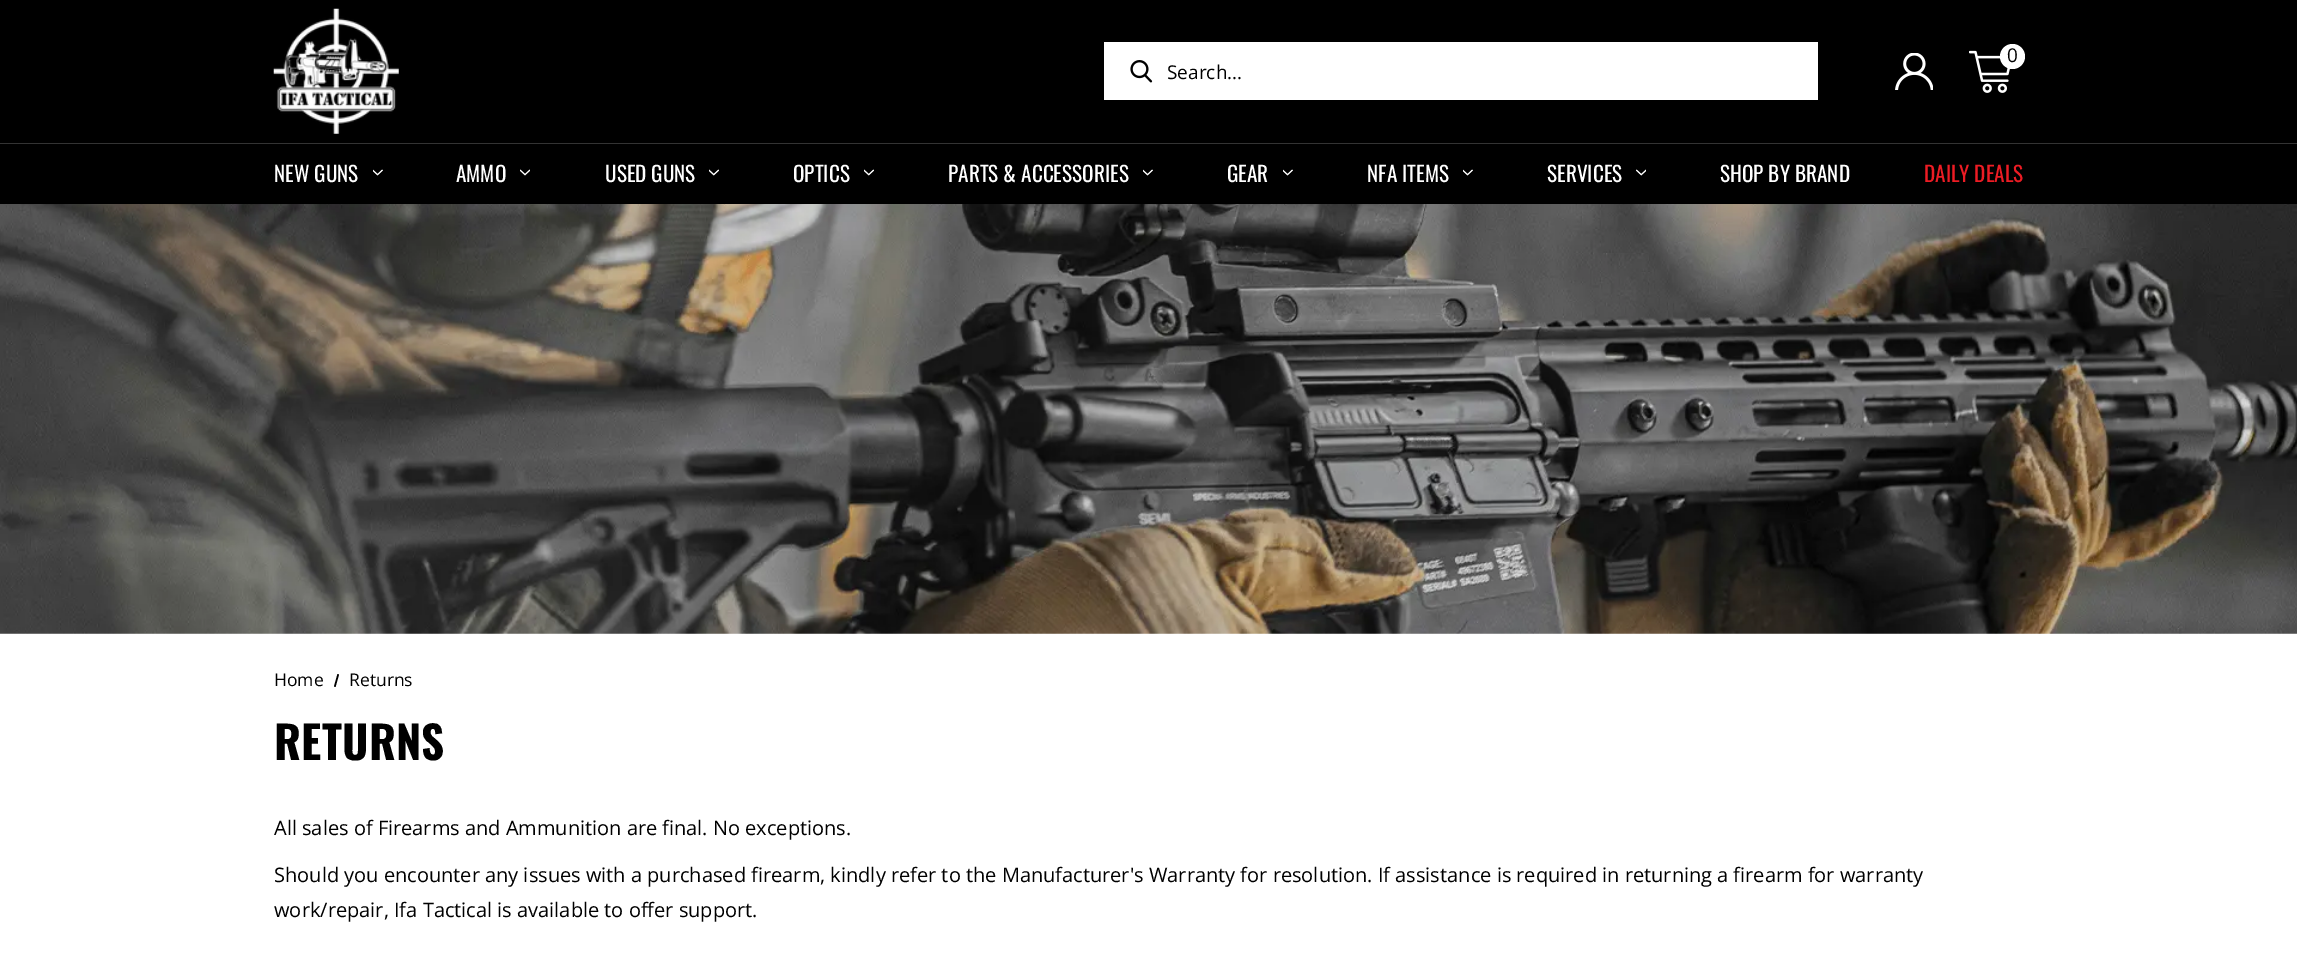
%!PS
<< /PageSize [2297 964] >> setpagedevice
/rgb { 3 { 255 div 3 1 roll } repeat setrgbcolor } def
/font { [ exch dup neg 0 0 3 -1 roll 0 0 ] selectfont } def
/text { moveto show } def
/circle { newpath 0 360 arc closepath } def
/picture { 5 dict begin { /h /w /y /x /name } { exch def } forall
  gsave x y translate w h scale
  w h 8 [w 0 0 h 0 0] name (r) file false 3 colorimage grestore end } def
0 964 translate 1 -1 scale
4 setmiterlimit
255 255 255 rgb
0 0 2297 964 rectfill
0 0 0 rgb
0 0 2297 143 rectfill
(img_01.rgb) 273 8 126 126 picture
(img_02.rgb) 1895 53 38 37 picture
(img_03.rgb) 1969 50 41 43 picture
255 255 255 rgb
2012.5 56.5 12.5 circle fill
1104 42 714 58 rectfill
(img_04.rgb) 1130 60 23 23 picture
0 0 0 rgb
0 144 2297 60 rectfill
51 51 51 rgb
0 143 2297 1 rectfill
(img_05.rgb) 373 169 10 7 picture
(img_06.rgb) 520 169 10 7 picture
(img_07.rgb) 709 169 10 7 picture
(img_07.rgb) 864 169 10 7 picture
(img_05.rgb) 1143 169 10 7 picture
(img_05.rgb) 1283 169 10 7 picture
(img_05.rgb) 1463 169 10 7 picture
(img_08.rgb) 1636 169 10 7 picture
(img_09.rgb) 0 204 2297 430 picture
0 0 0 rgb
337.5 674 moveto 1.5 0.5 rlineto -3.5 12.5 rlineto -1.5 -0.5 rlineto closepath fill
/OpenSans-Regular 19 font
(0) 2007 62 text
(Search...) 1167 79 text
/Oswald-Regular 21.25 font
255 255 255 rgb
(NEW GUNS) 274 182 text
(AMMO) 456 182 text
(USED GUNS) 605 182 text
(OPTICS) 793 182 text
(PARTS & ACCESSORIES) 948 182 text
(GEAR) 1227 182 text
(NFA ITEMS) 1367 182 text
(SERVICES) 1547 182 text
(SHOP BY BRAND) 1720 182 text
237 28 36 rgb
(DAILY DEALS) 1924 182 text
/OpenSans-Regular 17.5 font
0 0 0 rgb
(Home) 274 686 text
(Returns) 349 686 text
/Oswald-Bold 45 font
274 760 moveto 0.25 0 (RETURNS) ashow
/OpenSans-Regular 20 font
(All sales of Firearms and Ammunition are final. No exceptions.) 274 835 text
(Should you encounter any issues with a purchased firearm, kindly refer to the Manufacturer's Warranty for resolution. If assistance is required in returning a firearm for warranty) 274 882 text
(work/repair, Ifa Tactical is available to offer support.) 274 917 text
showpage
